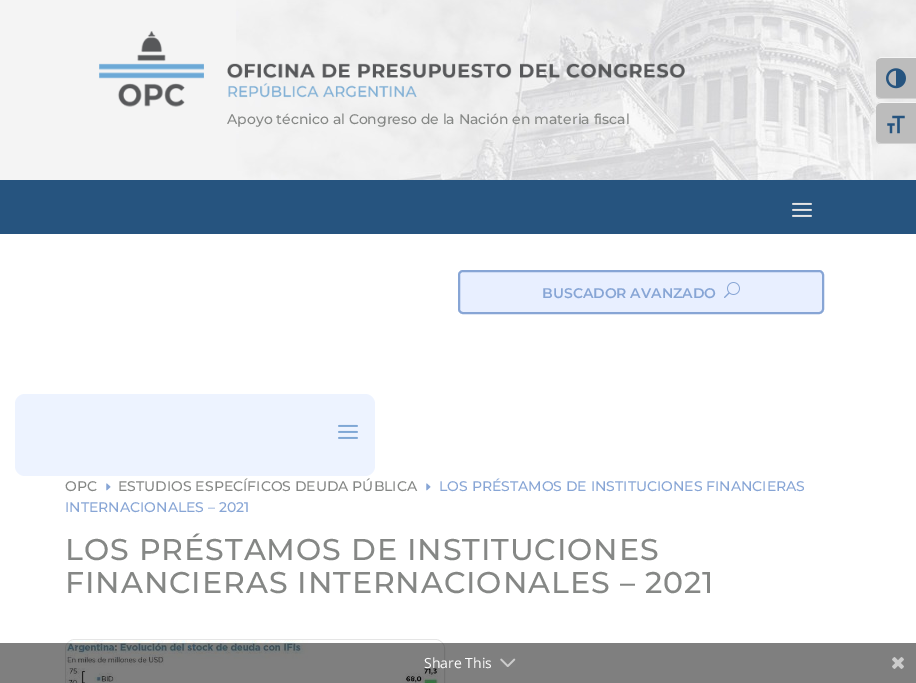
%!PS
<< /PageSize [916 683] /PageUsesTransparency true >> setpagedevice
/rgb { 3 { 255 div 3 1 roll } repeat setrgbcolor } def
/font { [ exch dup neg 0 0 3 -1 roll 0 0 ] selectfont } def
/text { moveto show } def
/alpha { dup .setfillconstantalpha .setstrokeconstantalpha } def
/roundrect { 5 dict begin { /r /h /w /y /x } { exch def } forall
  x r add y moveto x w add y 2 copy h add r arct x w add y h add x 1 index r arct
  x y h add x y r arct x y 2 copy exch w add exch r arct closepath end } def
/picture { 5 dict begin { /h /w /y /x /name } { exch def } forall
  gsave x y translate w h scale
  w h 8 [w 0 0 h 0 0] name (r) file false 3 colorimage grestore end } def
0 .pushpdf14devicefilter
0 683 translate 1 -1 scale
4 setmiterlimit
255 255 255 rgb
0 0 916 683 rectfill
(img_03.rgb) 236 0 680 180 picture
188 188 188 rgb
881 57 moveto 35 0 rlineto 0 42 rlineto -35 0 rlineto -3 0 -5 -2 -5 -5 rcurveto 0 -32 rlineto 0 -3 2 -5 5 -5 rcurveto closepath fill
245 245 245 rgb
881 58 moveto 35 0 rlineto 0 -1 rlineto -35 0 rlineto -3 0 -5 2 -5 5 rcurveto 0 -2 2 -4 5 -4 rcurveto closepath fill
210 210 210 rgb
916 99 moveto 0 -1 rlineto -35 0 rlineto -3 0 -5 -2 -5 -4 rcurveto 0 3 2 5 5 5 rcurveto closepath fill
(img_01.rgb) 886 68 20 21 picture
188 188 188 rgb
881 102 moveto 35 0 rlineto 0 42 rlineto -35 0 rlineto -3 0 -5 -2 -5 -5 rcurveto 0 -32 rlineto 0 -3 2 -5 5 -5 rcurveto closepath fill
245 245 245 rgb
881 103 moveto 35 0 rlineto 0 -1 rlineto -35 0 rlineto -3 0 -5 2 -5 5 rcurveto 0 -2 2 -4 5 -4 rcurveto closepath fill
210 210 210 rgb
916 144 moveto 0 -1 rlineto -35 0 rlineto -3 0 -5 -2 -5 -4 rcurveto 0 3 2 5 5 5 rcurveto closepath fill
(img_02.rgb) 887 115 18 19 picture
244 244 244 rgb
0 0 236 180 rectfill
(img_04.rgb) 99 31 586 76 picture
38 84 127 rgb
0 180 916 54 rectfill
(img_05.rgb) 792 202 20 15 picture
232 239 255 rgb
459 271 364 42 4 roundrect gsave fill grestore
135 165 213 rgb
2 setlinewidth
stroke
(img_06.rgb) 724 282 16 16 picture
237 243 255 rgb
15 394 360 82 10 roundrect fill
(img_07.rgb) 338 424 20 15 picture
(img_08.rgb) 106 483 5 8 picture
(img_08.rgb) 426 483 5 8 picture
229 229 229 rgb
1 setlinewidth
65.5 639.5 379 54 9.5 roundrect stroke
(img_09.rgb) 66 640 378 43 picture
0.5 alpha
0 0 0 rgb
0 643 916 40 rectfill
1 alpha
(img_10.rgb) 500 658 16 9 picture
(img_11.rgb) 892 657 12 12 picture
/Montserrat-Medium 14 font
133 135 133 rgb
(Apoyo técnico al Congreso de la Nación en materia fiscal) 227 124 text
/Montserrat-SemiBold 14 font
135 165 213 rgb
(BUSCADOR AVANZADO) 542 298 text
/Montserrat-Medium 14 font
133 135 133 rgb
(OPC) 65 491 text
(ESTUDIOS ESPECÍFICOS DEUDA PÚBLICA) 118 491 text
135 165 213 rgb
(LOS PRÉSTAMOS DE INSTITUCIONES FINANCIERAS) 439 491 text
(INTERNACIONALES – 2021) 65 512 text
/Montserrat-Medium 30 font
133 135 133 rgb
65 560 moveto 1 0 (LOS PRÉSTAMOS DE INSTITUCIONES) ashow
65 593 moveto 1 0 (FINANCIERAS INTERNACIONALES – 2021) ashow
/OpenSans-Regular 14 font
255 255 255 rgb
(Share This) 424 668 text
.poppdf14devicefilter showpage
